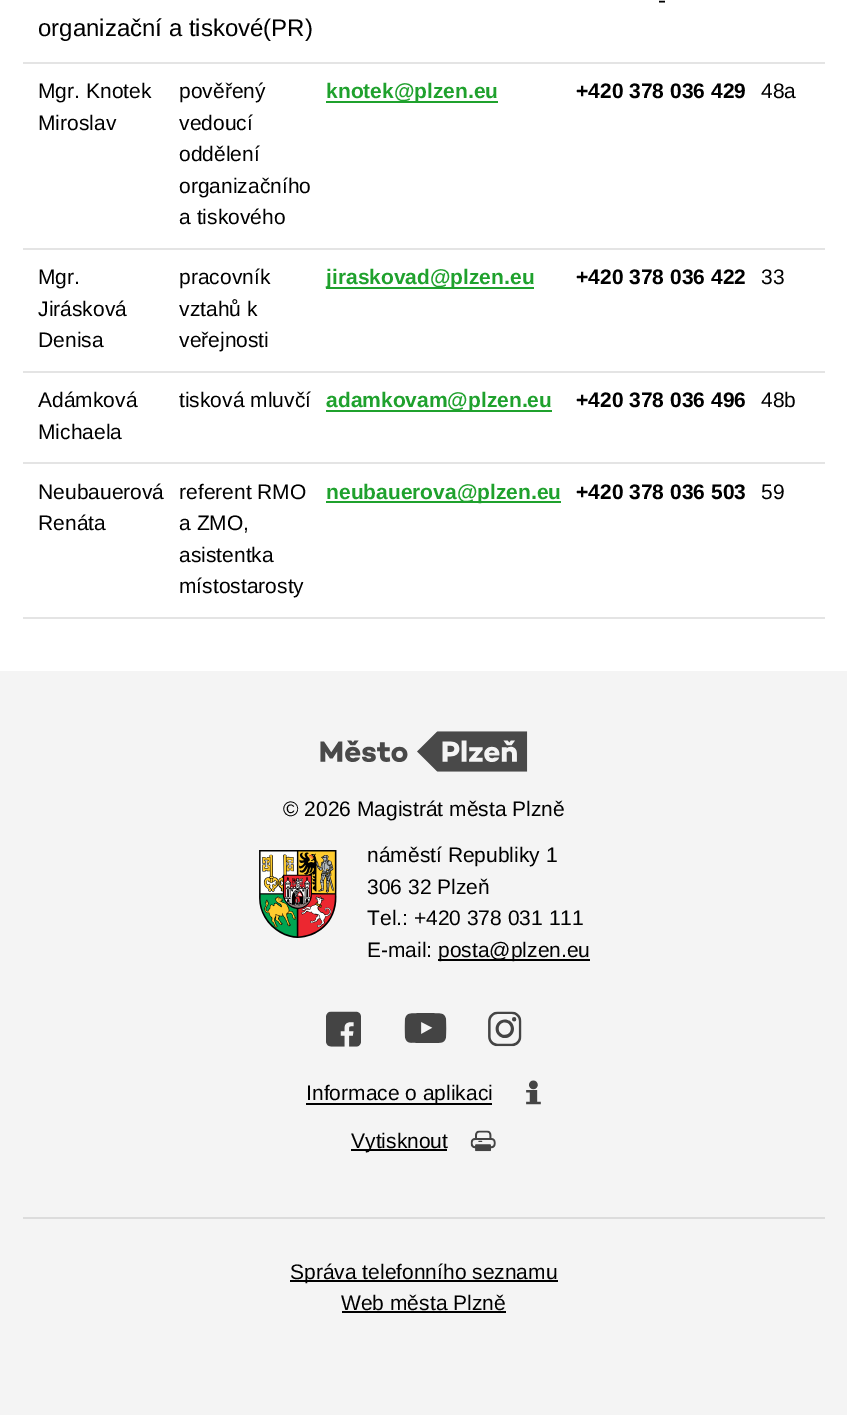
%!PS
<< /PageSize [847 1415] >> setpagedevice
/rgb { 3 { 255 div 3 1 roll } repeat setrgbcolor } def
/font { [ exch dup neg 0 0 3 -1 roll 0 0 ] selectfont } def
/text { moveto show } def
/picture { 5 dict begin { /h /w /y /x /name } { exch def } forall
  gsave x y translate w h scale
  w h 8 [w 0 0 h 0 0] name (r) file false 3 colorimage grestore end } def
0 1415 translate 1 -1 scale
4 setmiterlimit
255 255 255 rgb
0 0 847 1415 rectfill
228 228 228 rgb
23 62 802 2 rectfill
31 161 45 rgb
326 101 172 2 rectfill
228 228 228 rgb
23 248 802 2 rectfill
31 161 45 rgb
326 287 208 2 rectfill
228 228 228 rgb
23 371 802 2 rectfill
31 161 45 rgb
326 410 226 2 rectfill
228 228 228 rgb
23 462 802 2 rectfill
31 161 45 rgb
326 501 235 2 rectfill
228 228 228 rgb
23 617 802 2 rectfill
244 244 244 rgb
0 671 847 744 rectfill
(img_01.rgb) 320 731 208 41 picture
(img_02.rgb) 259 850 78 88 picture
0 0 0 rgb
438 959 152 2 rectfill
(img_03.rgb) 326 1011 35 36 picture
(img_04.rgb) 404 1013 43 30 picture
(img_05.rgb) 488 1011 34 36 picture
306 1103 186 2 rectfill
(img_06.rgb) 526 1080 15 25 picture
351 1149 96 2 rectfill
(img_07.rgb) 470 1130 26 22 picture
220 220 220 rgb
23 1217 802 2 rectfill
0 0 0 rgb
290 1280 268 2 rectfill
342 1311 164 2 rectfill
/LiberationSans-Regular 24 font
(-) 658 8 text
(organizační a tiskové\(PR\)) 38 36 text
/LiberationSans-Regular 21 font
(Mgr. Knotek) 38 98 text
(Miroslav) 38 130 text
(pověřený) 179 98 text
(vedoucí) 179 130 text
(oddělení) 179 161 text
(organizačního) 179 193 text
(a tiskového) 179 224 text
/LiberationSans-Bold 21 font
31 161 45 rgb
(knotek@plzen.eu) 326 98 text
0 0 0 rgb
(+420 378 036 429) 576 98 text
/LiberationSans-Regular 21 font
(48a) 761 98 text
(Mgr.) 38 284 text
(Jirásková) 38 316 text
(Denisa) 38 347 text
(pracovník) 179 284 text
(vztahů k) 179 316 text
(veřejnosti) 179 347 text
/LiberationSans-Bold 21 font
31 161 45 rgb
(jiraskovad@plzen.eu) 326 284 text
0 0 0 rgb
(+420 378 036 422) 576 284 text
/LiberationSans-Regular 21 font
(33) 761 284 text
(Adámková) 38 407 text
(Michaela) 38 439 text
(tisková mluvčí) 179 407 text
/LiberationSans-Bold 21 font
31 161 45 rgb
(adamkovam@plzen.eu) 326 407 text
0 0 0 rgb
(+420 378 036 496) 576 407 text
/LiberationSans-Regular 21 font
(48b) 761 407 text
(Neubauerová) 38 499 text
(Renáta) 38 530 text
(referent RMO) 179 499 text
(a ZMO,) 179 530 text
(asistentka) 179 562 text
(místostarosty) 179 593 text
/LiberationSans-Bold 21 font
31 161 45 rgb
(neubauerova@plzen.eu) 326 499 text
0 0 0 rgb
(+420 378 036 503) 576 499 text
/LiberationSans-Regular 21 font
(59) 761 499 text
(© 2026 Magistrát města Plzně) 283 816 text
(náměstí Republiky 1) 367 862 text
(306 32 Plzeň) 367 894 text
(Tel.: +420 378 031 111) 367 925 text
(E-mail:) 367 957 text
(posta@plzen.eu) 438 957 text
(Informace o aplikaci) 306 1100 text
(Vytisknout) 351 1148 text
(Správa telefonního seznamu) 290 1279 text
(Web města Plzně) 341 1310 text
showpage
